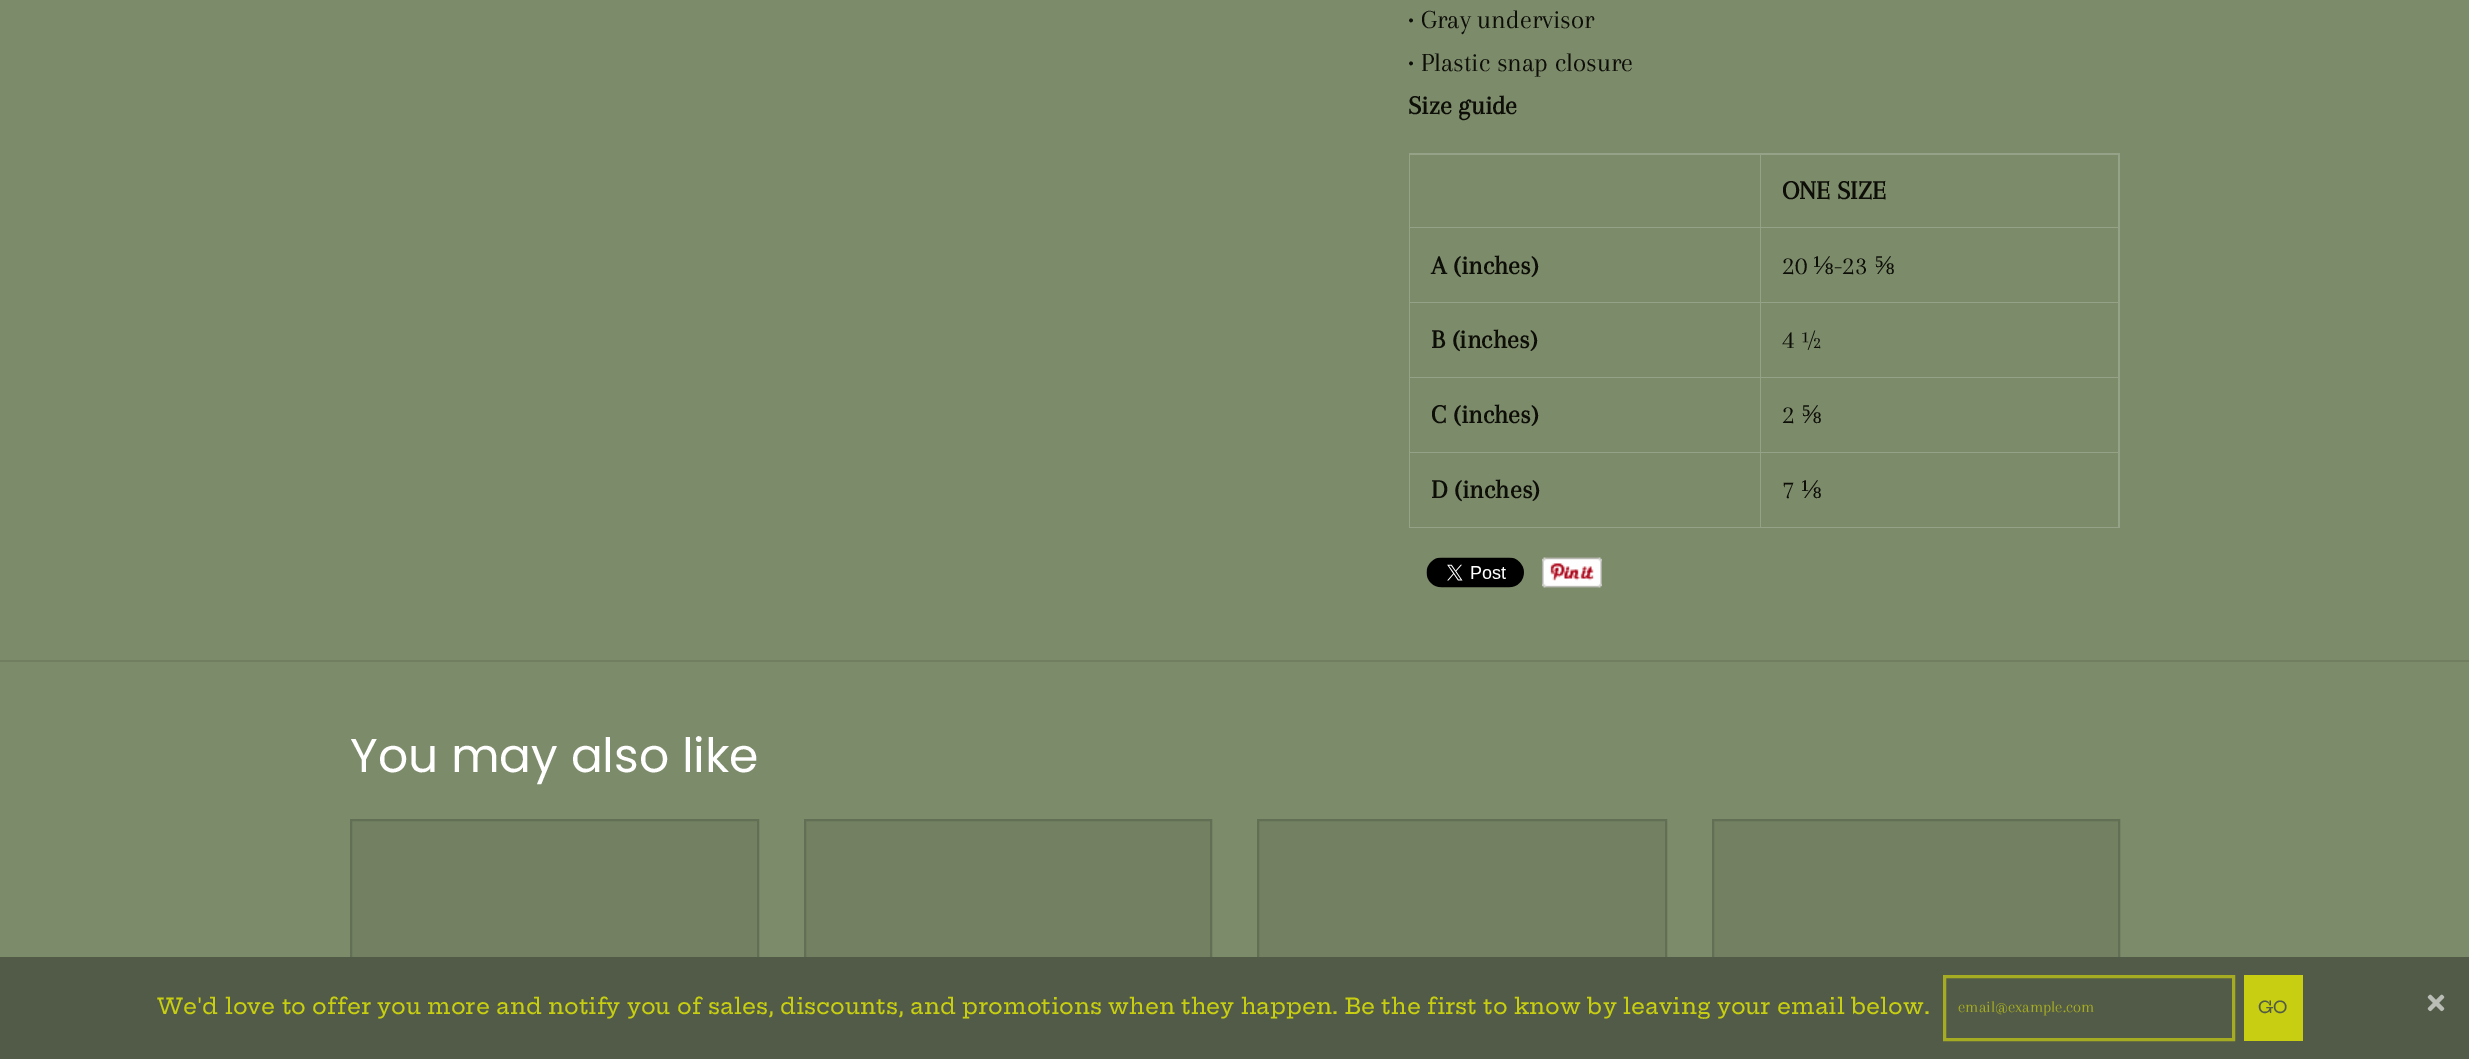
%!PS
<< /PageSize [2469 1059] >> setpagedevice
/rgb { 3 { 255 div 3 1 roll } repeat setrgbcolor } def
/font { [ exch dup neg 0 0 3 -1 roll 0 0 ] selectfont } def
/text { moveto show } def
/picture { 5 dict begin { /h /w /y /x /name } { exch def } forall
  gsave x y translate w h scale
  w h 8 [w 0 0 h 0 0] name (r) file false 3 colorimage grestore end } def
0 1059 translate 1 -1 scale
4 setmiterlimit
124 139 106 rgb
0 0 2469 1059 rectfill
113 126 96 rgb
0 660 2469 2 rectfill
150 162 135 rgb
1409 153 711 375 rectfill
124 139 106 rgb
1410 155 350 72 rectfill
1761 155 357 72 rectfill
1410 228 350 74 rectfill
1761 228 357 74 rectfill
1410 303 350 74 rectfill
1761 303 357 74 rectfill
1410 378 350 74 rectfill
1761 378 357 74 rectfill
1410 453 350 74 rectfill
1761 453 357 74 rectfill
(img_01.rgb) 1426 557 98 31 picture
(img_02.rgb) 1542 557 60 31 picture
115 129 98 rgb
352 821 405 136 rectfill
99 111 84 rgb
2 setlinewidth
351 820 407 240 rectstroke
115 129 98 rgb
806 821 404 136 rectfill
99 111 84 rgb
805 820 406 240 rectstroke
115 129 98 rgb
1259 821 406 136 rectfill
99 111 84 rgb
1258 820 408 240 rectstroke
115 129 98 rgb
1714 821 404 136 rectfill
99 111 84 rgb
1713 820 406 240 rectstroke
82 91 72 rgb
0 957 2469 102 rectfill
165 172 34 rgb
3 setlinewidth
1944.5 976.5 289 63 rectstroke
200 206 17 rgb
2244 975 59 66 rectfill
(img_03.rgb) 2427 994 18 18 picture
/Arapey-Regular 27 font
14 14 9 rgb
(• Gray undervisor) 1408 28 text
(• Plastic snap closure) 1408 71 text
/Arapey-Bold 27 font
(Size guide) 1408 114 text
(ONE SIZE) 1782 199 text
(A \(inches\)) 1431 274 text
/Arapey-Regular 27 font
(20) 1782 274 text
/LiberationSerif-Regular 27 font
(⅛) 1813 274 text
/Arapey-Regular 27 font
(-23) 1834 274 text
/LiberationSerif-Regular 27 font
(⅝) 1874 274 text
/Arapey-Bold 27 font
(B \(inches\)) 1431 348 text
/Arapey-Regular 27 font
(4 ½) 1782 348 text
/Arapey-Bold 27 font
(C \(inches\)) 1431 423 text
/Arapey-Regular 27 font
(2) 1782 423 text
/LiberationSerif-Regular 27 font
(⅝) 1801 423 text
/Arapey-Bold 27 font
(D \(inches\)) 1431 498 text
/Arapey-Regular 27 font
(7) 1782 498 text
/LiberationSerif-Regular 27 font
(⅛) 1801 498 text
/Poppins-Regular 47.25 font
255 255 255 rgb
(You may also like) 350 772 text
/HeptaSlab-Medium 21.95 font
200 206 17 rgb
(We'd love to offer you more and notify you of sales, discounts, and promotions when they happen. Be the first to know by leaving your email below.) 157 1014 text
/Arapey-Regular 16.5 font
165 172 34 rgb
(email@example.com) 1958 1012 text
/HeptaSlab-Medium 16.5 font
82 91 72 rgb
(GO) 2258 1013 text
showpage
